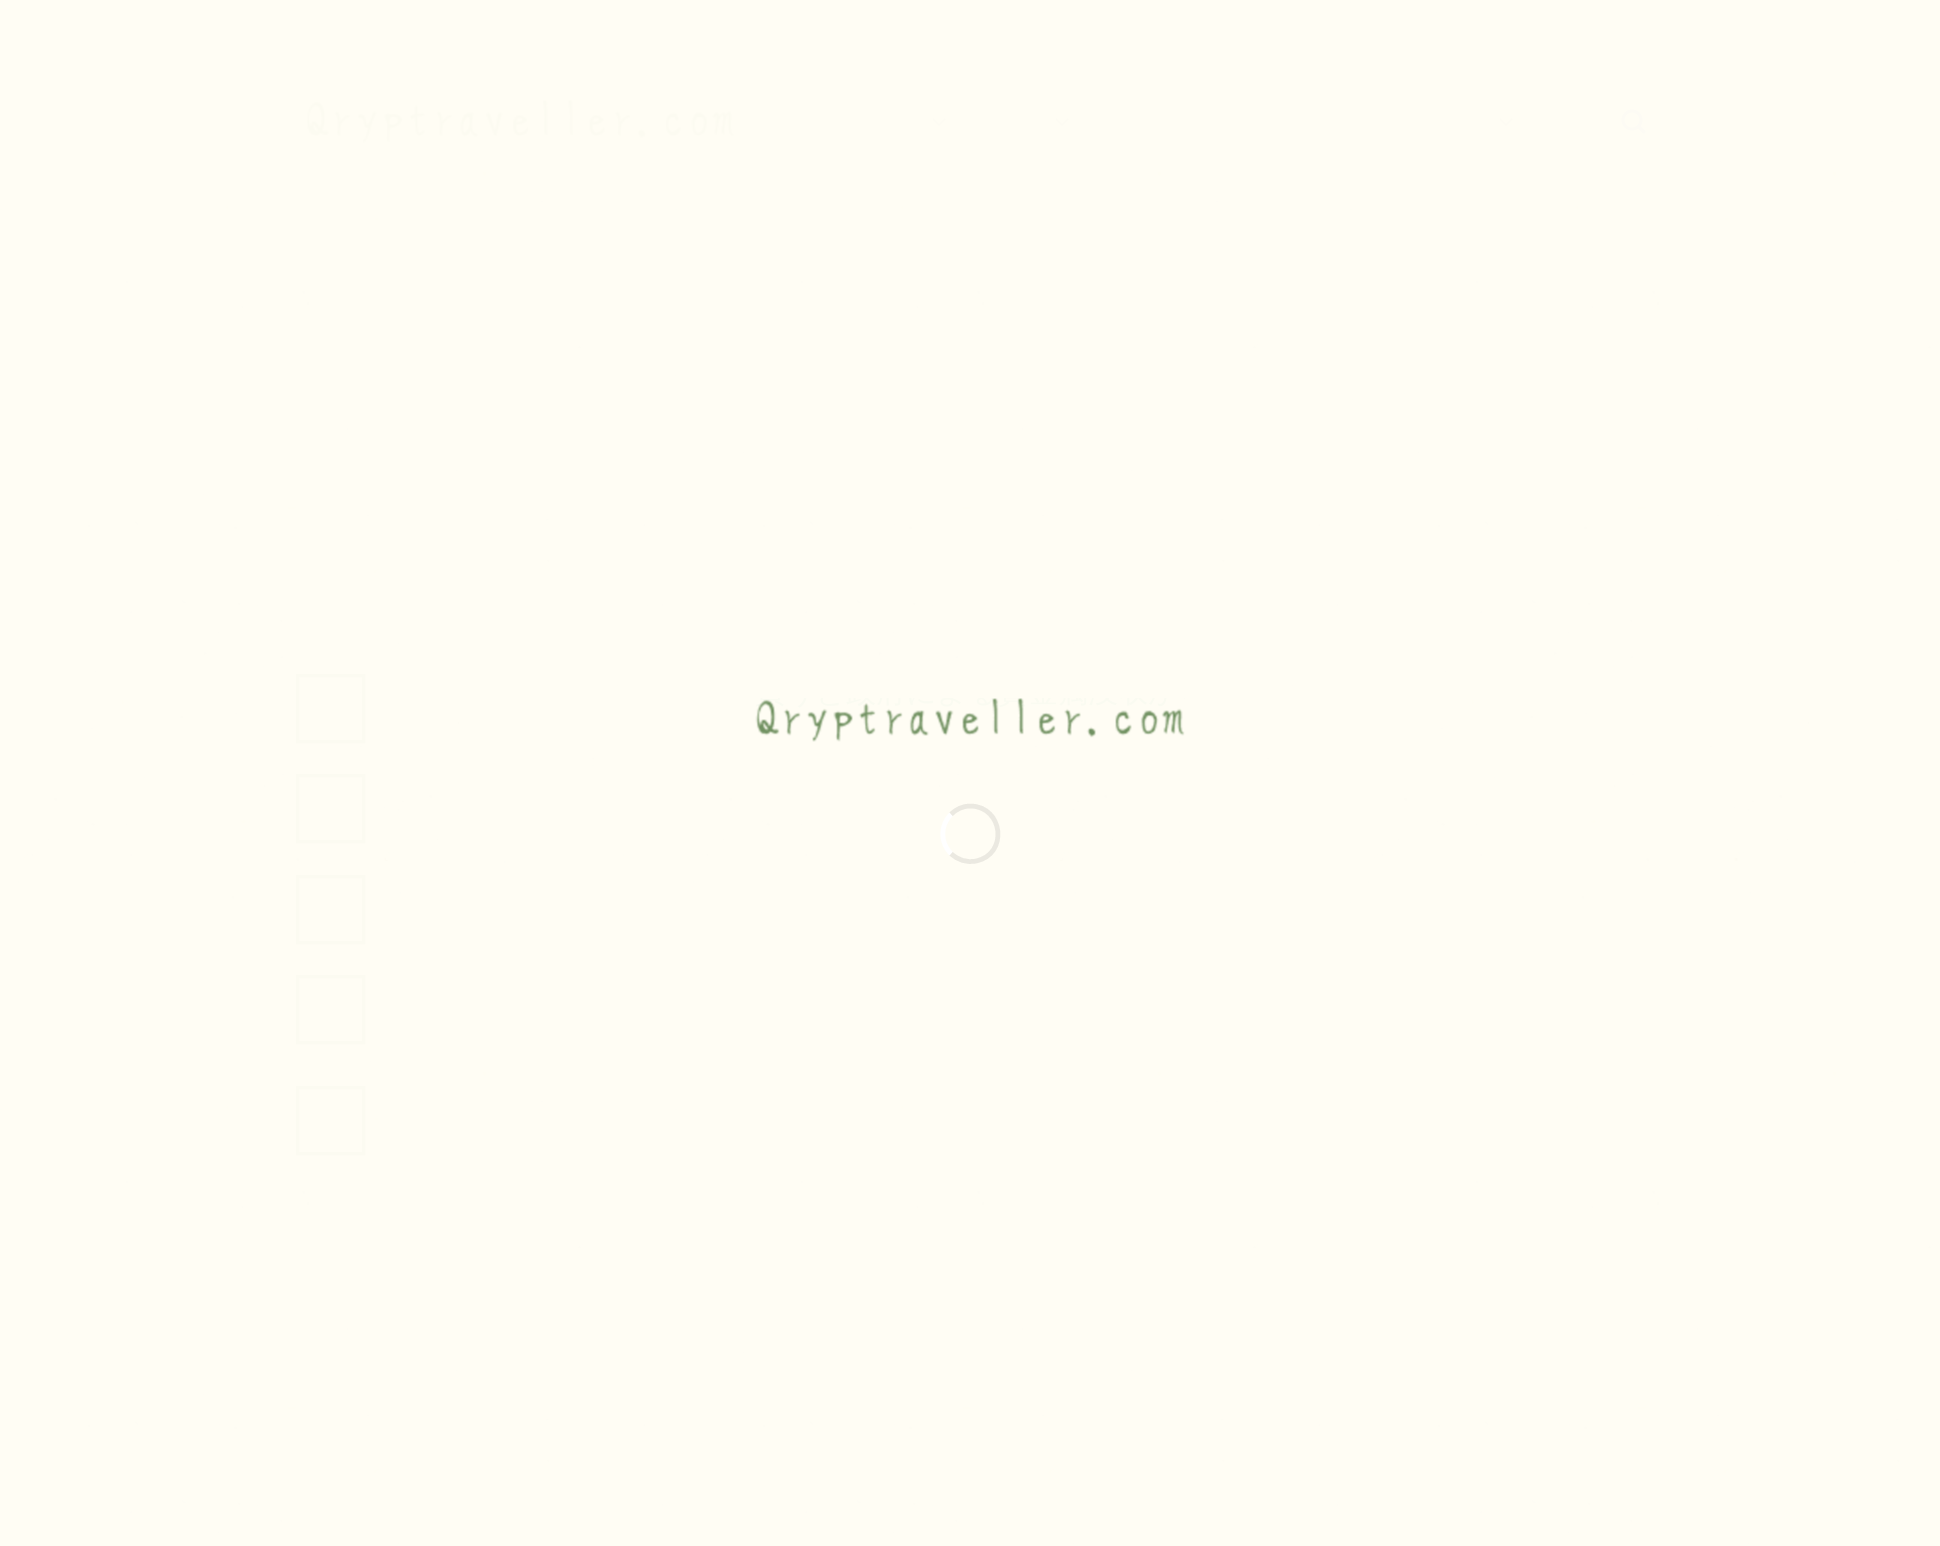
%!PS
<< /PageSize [1940 1546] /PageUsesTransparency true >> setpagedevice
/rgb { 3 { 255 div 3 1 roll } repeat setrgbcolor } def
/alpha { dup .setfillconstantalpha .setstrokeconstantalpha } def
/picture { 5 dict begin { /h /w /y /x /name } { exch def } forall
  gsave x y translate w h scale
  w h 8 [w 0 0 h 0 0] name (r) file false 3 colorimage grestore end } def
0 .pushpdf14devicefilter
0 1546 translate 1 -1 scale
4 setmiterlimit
255 255 255 rgb
0 0 1940 1546 rectfill
(img_01.rgb) 0 0 1940 1546 picture
(img_02.rgb) 306 99 428 44 picture
(img_03.rgb) 932 118 14 8 picture
(img_03.rgb) 1055 118 14 8 picture
(img_03.rgb) 1499 118 14 8 picture
(img_04.rgb) 1621 109 25 25 picture
(img_05.rgb) 882 287 30 27 picture
255 253 244 rgb
386 858 676 2 rectfill
252 251 241 rgb
3 setlinewidth
297.5 675.5 66 66 rectstroke
297.5 775.5 66 66 rectstroke
297.5 876.5 66 66 rectstroke
297.5 976.5 66 66 rectstroke
297.5 1087.5 66 66 rectstroke
(img_06.rgb) 755 698 430 44 picture
0.08 alpha
0 0 0 rgb
4.5 setlinewidth
951 814.5 moveto 5 -5.5 12 -8.5 19.5 -8.5 rcurveto 33 0.5 38 48.5 5.5 55 rcurveto -9 2 -18.5 -1 -25 -7.5 rcurveto stroke
1 alpha
255 255 255 rgb
951 853.5 moveto -11 -10.5 -11 -28.5 0 -39 rcurveto stroke
.poppdf14devicefilter showpage
